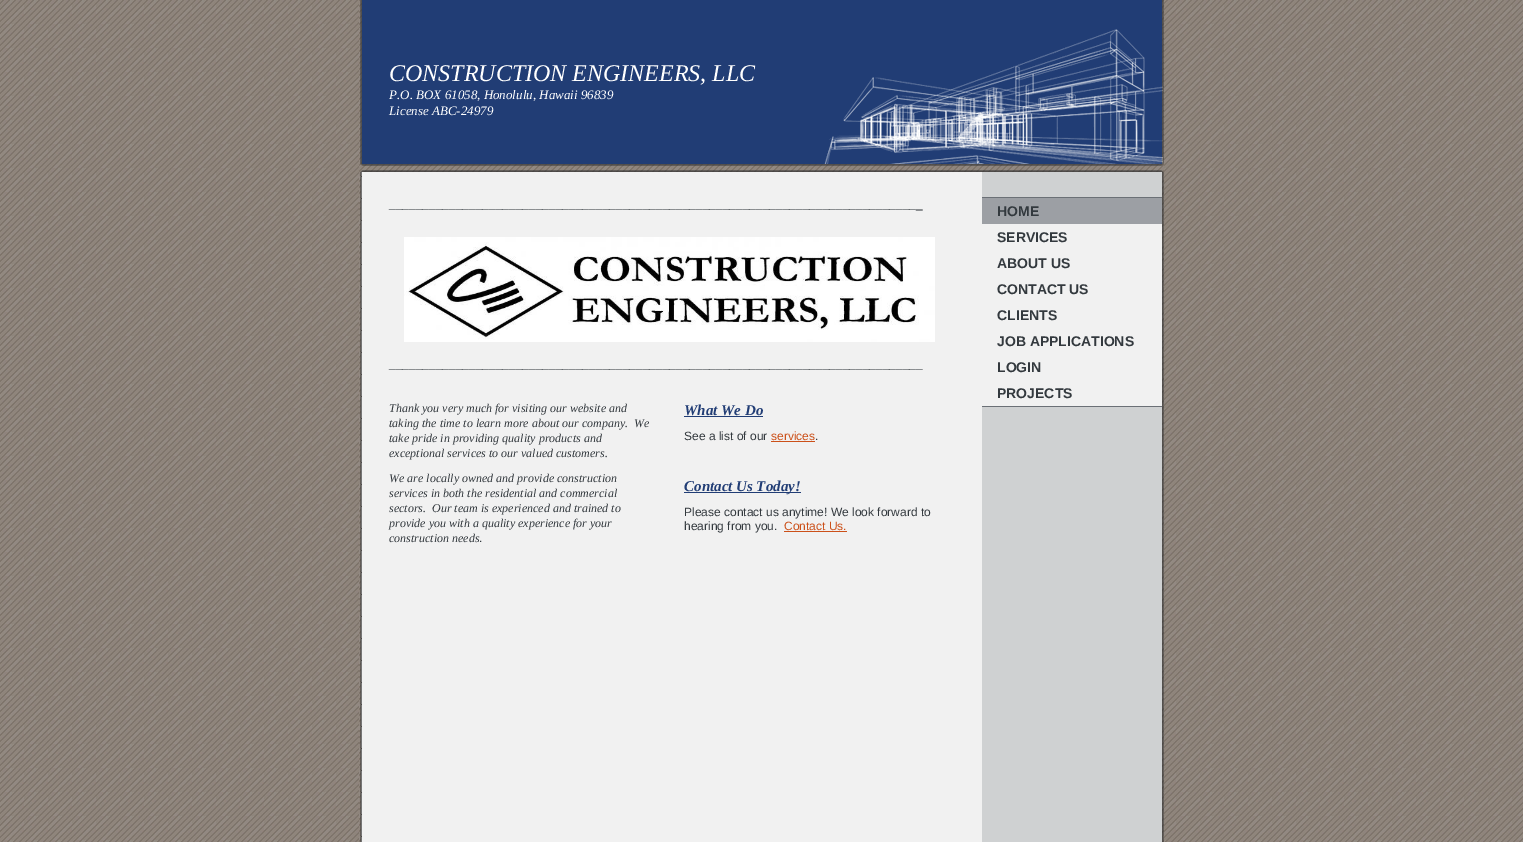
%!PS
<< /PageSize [1523 842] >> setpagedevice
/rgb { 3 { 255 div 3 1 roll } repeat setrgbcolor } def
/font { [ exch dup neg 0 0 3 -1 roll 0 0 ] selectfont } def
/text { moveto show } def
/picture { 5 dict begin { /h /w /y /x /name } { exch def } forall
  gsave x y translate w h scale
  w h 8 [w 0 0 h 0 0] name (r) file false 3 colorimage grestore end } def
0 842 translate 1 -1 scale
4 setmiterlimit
255 255 255 rgb
0 0 1523 842 rectfill
(img_01.rgb) 0 0 1523 842 picture
(img_02.rgb) 359 172 805 670 picture
(img_03.rgb) 359 0 805 27 picture
(img_04.rgb) 359 27 805 145 picture
(img_05.rgb) 404 237 531 105 picture
33 61 117 rgb
684 416 79 1 rectfill
204 80 25 rgb
771 441 44 1 rectfill
33 61 117 rgb
684 492 117 1 rectfill
204 80 25 rgb
784 531 63 1 rectfill
241 241 241 rgb
982 224 180 182 rectfill
107 112 118 rgb
982 197 180 1 rectfill
982 406 180 1 rectfill
156 159 164 rgb
982 198 180 26 rectfill
/LiberationSerif-Italic 24 font
255 255 255 rgb
(CONSTRUCTION ENGINEERS, LLC) 389 81 text
/LiberationSerif-Italic 13 font
(P.O. BOX 61058, Honolulu, Hawaii 96839) 389 99 text
(License ABC-24979) 389 115 text
/LiberationSans-Bold 12 font
51 57 62 rgb
(_______________________________________________________________________________) 389 208 text
/LiberationSans-Regular 12 font
(_) 916 208 text
/LiberationSans-Bold 12 font
(________________________________________________________________________________) 389 368 text
/LiberationSerif-Italic 12 font
(Thank you very much for visiting our website and) 389 412 text
(taking the time to learn more about our company.  We) 389 427 text
(take pride in providing quality products and) 389 442 text
(exceptional services to our valued customers.) 389 457 text
(We are locally owned and provide construction) 389 482 text
(services in both the residential and commercial) 389 497 text
(sectors.  Our team is experienced and trained to) 389 512 text
(provide you with a quality experience for your) 389 527 text
(construction needs) 389 542 text
/LiberationSans-Regular 12 font
(.) 479 542 text
/LiberationSerif-BoldItalic 15 font
33 61 117 rgb
(What We Do) 684 415 text
/LiberationSans-Regular 12 font
51 57 62 rgb
(See a list of our) 684 440 text
204 80 25 rgb
(services) 771 440 text
51 57 62 rgb
(.) 815 440 text
/LiberationSerif-BoldItalic 15 font
33 61 117 rgb
(Contact Us Today!) 684 491 text
/LiberationSans-Regular 12 font
51 57 62 rgb
(Please contact us anytime! We look forward to) 684 516 text
(hearing from you.) 684 530 text
204 80 25 rgb
(Contact Us.) 784 530 text
/LiberationSans-Bold 14 font
51 57 62 rgb
(HOME) 997 216 text
(SERVICES) 997 242 text
(ABOUT US) 997 268 text
(CONTACT US) 997 294 text
(CLIENTS) 997 320 text
(JOB APPLICATIONS) 997 346 text
(LOGIN) 997 372 text
(PROJECTS) 997 398 text
showpage
